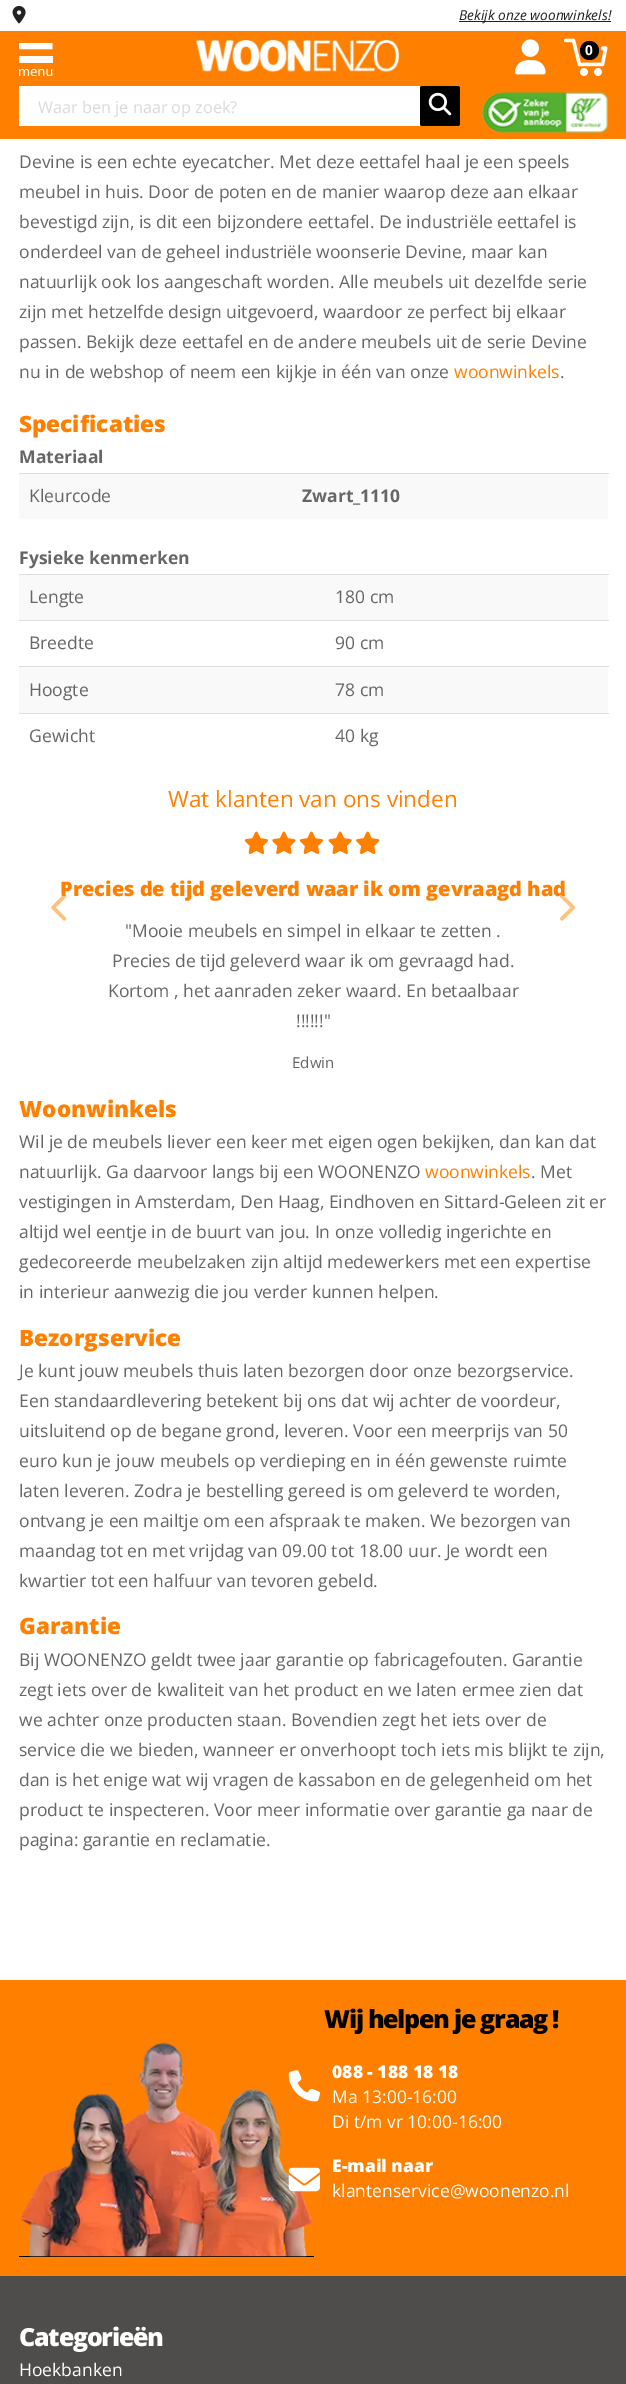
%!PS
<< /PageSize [626 2384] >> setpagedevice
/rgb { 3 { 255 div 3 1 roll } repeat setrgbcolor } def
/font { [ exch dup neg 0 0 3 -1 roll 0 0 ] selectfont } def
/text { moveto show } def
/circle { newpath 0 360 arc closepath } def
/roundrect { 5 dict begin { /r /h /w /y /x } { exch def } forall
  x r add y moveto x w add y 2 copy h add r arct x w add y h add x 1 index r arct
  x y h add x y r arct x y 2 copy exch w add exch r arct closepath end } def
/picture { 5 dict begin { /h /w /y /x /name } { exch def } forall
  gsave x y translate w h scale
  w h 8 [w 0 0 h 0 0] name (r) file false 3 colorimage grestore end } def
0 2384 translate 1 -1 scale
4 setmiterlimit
255 255 255 rgb
0 0 626 2384 rectfill
(img_01.rgb) 12 5 14 19 picture
34 34 34 rgb
459 21 152 1 rectfill
255 127 0 rgb
0 31 626 108 rectfill
(img_02.rgb) 19 43 34 33 picture
(img_03.rgb) 195 40 205 32 picture
(img_04.rgb) 515 39 31 36 picture
(img_05.rgb) 564 38 44 38 picture
0 0 0 rgb
589.5 50.5 9.5 circle fill
255 255 255 rgb
19 86 401 40 rectfill
0 0 0 rgb
420 86 40 40 2.5 roundrect fill
(img_06.rgb) 428 92 24 24 picture
(img_07.rgb) 482 92 126 41 picture
249 249 249 rgb
19 474 589 45 rectfill
221 221 221 rgb
19 473 590 1 rectfill
249 249 249 rgb
19 575 589 45 rectfill
221 221 221 rgb
19 574 590 1 rectfill
19 620 590 1 rectfill
249 249 249 rgb
19 667 589 46 rectfill
221 221 221 rgb
19 666 590 1 rectfill
19 713 590 1 rectfill
(img_09.rgb) 244 831 24 23 picture
(img_10.rgb) 272 831 24 23 picture
(img_09.rgb) 299 831 24 23 picture
(img_11.rgb) 328 831 24 23 picture
(img_12.rgb) 356 831 24 23 picture
255 127 0 rgb
0 1980 626 296 rectfill
0 0 0 rgb
19 2256 295 1 rectfill
(img_14.rgb) 20 2042 293 215 picture
(img_15.rgb) 288 2070 32 32 picture
(img_16.rgb) 288 2167 32 25 picture
78 77 76 rgb
0 2276 626 108 rectfill
/OpenSans-Italic 13.75 font
34 34 34 rgb
(Bekijk onze woonwinkels!) 459 20 text
/OpenSans-Bold 13.75 font
255 255 255 rgb
(0) 585 55 text
/OpenSans-Regular 16.25 font
217 217 217 rgb
(Waar ben je naar op zoek?) 38 113 text
/OpenSans-Regular 17.5 font
102 102 102 rgb
(Devine is een echte eyecatcher. Met deze eettafel haal je een speels) 19 168 text
(meubel in huis. Door de poten en de manier waarop deze aan elkaar) 19 198 text
(bevestigd zijn, is dit een bijzondere eettafel. De industriële eettafel is) 19 228 text
(onderdeel van de geheel industriële woonserie Devine, maar kan) 19 258 text
(natuurlijk ook los aangeschaft worden. Alle meubels uit dezelfde serie) 19 288 text
(zijn met hetzelfde design uitgevoerd, waardoor ze perfect bij elkaar) 19 318 text
(passen. Bekijk deze eettafel en de andere meubels uit de serie Devine) 19 348 text
(nu in de webshop of neem een kijkje in één van onze) 19 378 text
255 127 0 rgb
(woonwinkels) 454 378 text
102 102 102 rgb
(.) 560 378 text
/OpenSans-ExtraBold 22.5 font
255 127 0 rgb
(Specificaties) 19 432 text
/OpenSans-Bold 17.5 font
102 102 102 rgb
(Materiaal) 19 463 text
/OpenSans-Regular 17.5 font
(Kleurcode) 29 502 text
/OpenSans-Bold 17.5 font
(Zwart_1110) 302 502 text
(Fysieke kenmerken) 19 564 text
/OpenSans-Regular 17.5 font
(Lengte) 29 603 text
(180 cm) 335 603 text
(Breedte) 29 649 text
(90 cm) 335 649 text
(Hoogte) 29 696 text
(78 cm) 335 696 text
(Gewicht) 29 742 text
(40 kg) 335 742 text
/OpenSans-Regular 22.5 font
255 127 0 rgb
(Wat klanten van ons vinden) 168 807 text
/OpenSans-ExtraBold 20 font
(Precies de tijd geleverd waar ik om gevraagd had) 60 896 text
(img_08.rgb) 51 894 16 27 picture
/OpenSans-Regular 17.5 font
102 102 102 rgb
("Mooie meubels en simpel in elkaar te zetten .) 125 937 text
(Precies de tijd geleverd waar ik om gevraagd had.) 112 967 text
(Kortom , het aanraden zeker waard. En betaalbaar) 108 997 text
(!!!!!!") 296 1027 text
/OpenSans-Regular 15 font
(Edwin) 292 1068 text
(img_13.rgb) 560 894 15 27 picture
/OpenSans-ExtraBold 22.5 font
255 127 0 rgb
(Woonwinkels) 19 1117 text
/OpenSans-Regular 17.5 font
102 102 102 rgb
(Wil je de meubels liever een keer met eigen ogen bekijken, dan kan dat) 19 1148 text
(natuurlijk. Ga daarvoor langs bij een WOONENZO) 19 1178 text
255 127 0 rgb
(woonwinkels) 425 1178 text
102 102 102 rgb
(. Met) 531 1178 text
(vestigingen in Amsterdam, Den Haag, Eindhoven en Sittard-Geleen zit er) 19 1208 text
(altijd wel eentje in de buurt van jou. In onze volledig ingerichte en) 19 1238 text
(gedecoreerde meubelzaken zijn altijd medewerkers met een expertise) 19 1268 text
(in interieur aanwezig die jou verder kunnen helpen.) 19 1298 text
/OpenSans-ExtraBold 22.5 font
255 127 0 rgb
(Bezorgservice) 19 1346 text
/OpenSans-Regular 17.5 font
102 102 102 rgb
(Je kunt jouw meubels thuis laten bezorgen door onze bezorgservice.) 19 1377 text
(Een standaardlevering betekent bij ons dat wij achter de voordeur,) 19 1407 text
(uitsluitend op de begane grond, leveren. Voor een meerprijs van 50) 19 1437 text
(euro kun je jouw meubels op verdieping en in één gewenste ruimte) 19 1467 text
(laten leveren. Zodra je bestelling gereed is om geleverd te worden,) 19 1497 text
(ontvang je een mailtje om een afspraak te maken. We bezorgen van) 19 1527 text
(maandag tot en met vrijdag van 09.00 tot 18.00 uur. Je wordt een) 19 1557 text
(kwartier tot een halfuur van tevoren gebeld.) 19 1587 text
/OpenSans-ExtraBold 22.5 font
255 127 0 rgb
(Garantie) 19 1634 text
/OpenSans-Regular 17.5 font
102 102 102 rgb
(Bij WOONENZO geldt twee jaar garantie op fabricagefouten. Garantie) 19 1666 text
(zegt iets over de kwaliteit van het product en we laten ermee zien dat) 19 1696 text
(we achter onze producten staan. Bovendien zegt het iets over de) 19 1726 text
(service die we bieden, wanneer er onverhoopt toch iets mis blijkt te zijn,) 19 1756 text
(dan is het enige wat wij vragen de kassabon en de gelegenheid om het) 19 1786 text
(product te inspecteren. Voor meer informatie over garantie ga naar de) 19 1816 text
(pagina: garantie en reclamatie.) 19 1846 text
/OpenSans-ExtraBold 25 font
0 0 0 rgb
324 2028 moveto -1.25 0 (Wij helpen je graag !) ashow
/OpenSans-ExtraBold 17.5 font
255 255 255 rgb
(088 - 188 18 18) 332 2078 text
/OpenSans-Regular 17.5 font
(Ma 13:00-16:00) 332 2103 text
(Di t/m vr 10:00-16:00) 332 2128 text
/OpenSans-ExtraBold 17.5 font
(E-mail naar) 332 2172 text
/OpenSans-Regular 17.5 font
(klantenservice@woonenzo.nl) 332 2197 text
/OpenSans-ExtraBold 25 font
19 2346 moveto -1.25 0 (Categorieën) ashow
/OpenSans-Regular 17.5 font
(Hoekbanken) 19 2376 text
showpage
